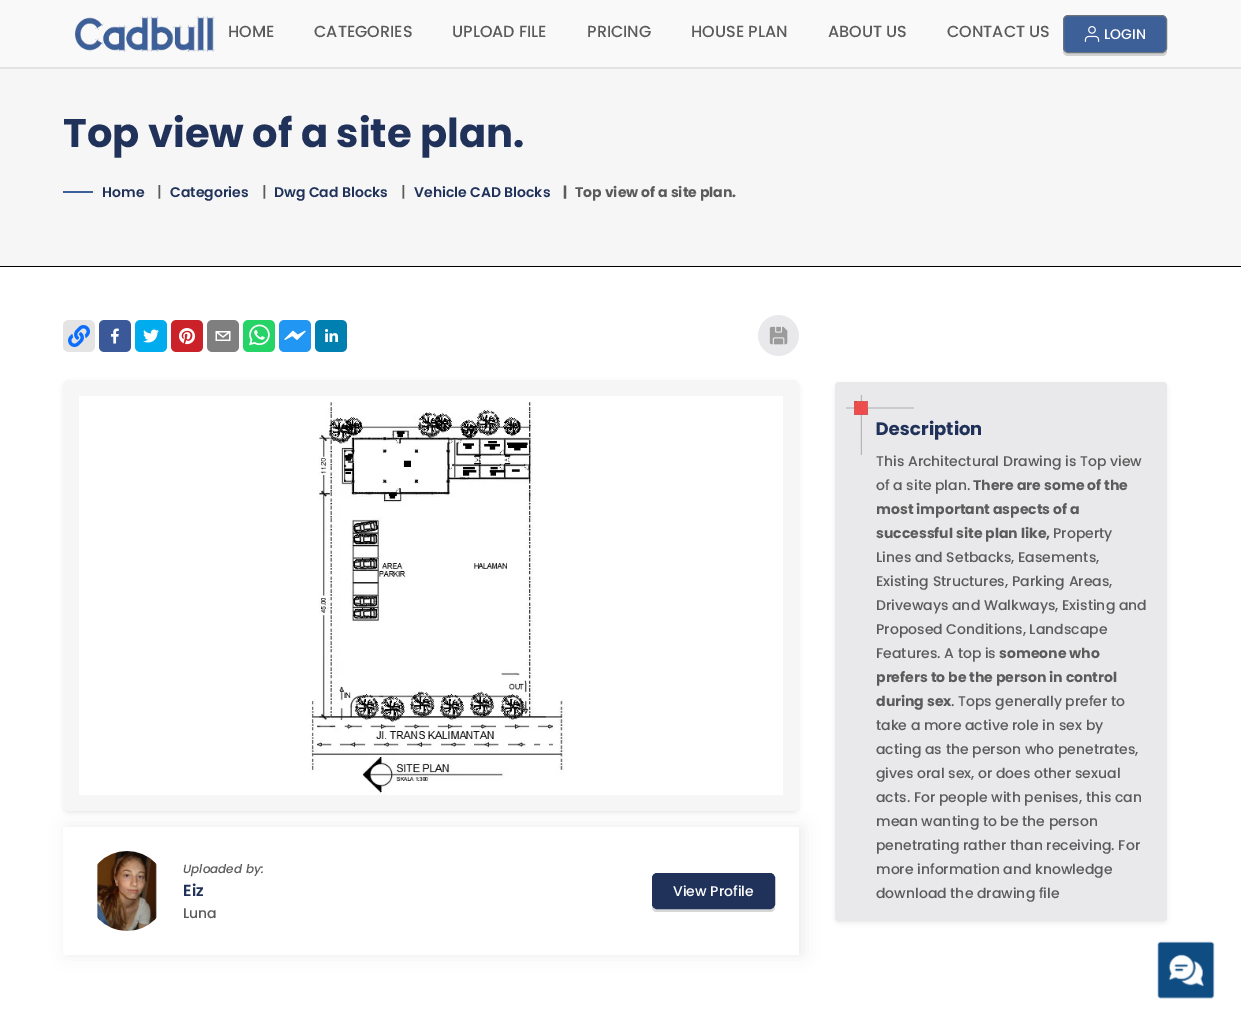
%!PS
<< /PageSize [1241 1025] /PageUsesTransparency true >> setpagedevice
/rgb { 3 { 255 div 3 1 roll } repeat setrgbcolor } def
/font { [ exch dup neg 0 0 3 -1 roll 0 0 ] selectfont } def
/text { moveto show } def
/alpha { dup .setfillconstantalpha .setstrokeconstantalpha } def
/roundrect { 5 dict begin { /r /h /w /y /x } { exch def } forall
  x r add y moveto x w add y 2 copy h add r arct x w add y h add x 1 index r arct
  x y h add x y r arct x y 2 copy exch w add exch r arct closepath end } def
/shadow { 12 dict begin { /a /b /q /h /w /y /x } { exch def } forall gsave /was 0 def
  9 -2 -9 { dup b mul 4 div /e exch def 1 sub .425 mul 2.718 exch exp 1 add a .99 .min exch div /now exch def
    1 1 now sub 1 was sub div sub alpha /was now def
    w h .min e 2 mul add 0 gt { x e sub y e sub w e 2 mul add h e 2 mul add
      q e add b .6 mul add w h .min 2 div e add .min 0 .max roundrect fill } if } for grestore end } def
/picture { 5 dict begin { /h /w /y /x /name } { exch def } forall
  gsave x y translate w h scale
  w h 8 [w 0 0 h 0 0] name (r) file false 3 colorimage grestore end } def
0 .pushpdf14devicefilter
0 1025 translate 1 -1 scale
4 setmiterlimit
255 255 255 rgb
0 0 1241 1025 rectfill
249 249 249 rgb
0 0 1241 67 rectfill
227 227 227 rgb
0 67 1241 2 rectfill
(img_01.rgb) 75 16 140 36 picture
209 209 209 rgb
1063 48 moveto 0 3 rlineto 0 3 2 5 5 5 rcurveto 94 0 rlineto 3 0 5 -2 5 -5 rcurveto 0 -3 rlineto 0 3 -2 5 -5 5 rcurveto -94 0 rlineto -3 0 -5 -2 -5 -5 rcurveto closepath fill
61 96 152 rgb
1063.5 15.5 103 37 4.5 roundrect gsave fill grestore
108 117 125 rgb
stroke
(img_02.rgb) 1084 26 16 16 picture
246 246 246 rgb
0 69 1241 197 rectfill
0 0 0 rgb
0 266 1241 1 rectfill
61 96 152 rgb
63 191 30 2 rectfill
228 228 228 rgb
63 320 32 32 6 roundrect fill
(img_03.rgb) 68 325 22 22 picture
(img_04.rgb) 99 320 32 32 picture
(img_05.rgb) 135 320 32 32 picture
(img_06.rgb) 171 320 32 32 picture
(img_07.rgb) 207 320 32 32 picture
(img_08.rgb) 243 320 32 32 picture
(img_09.rgb) 279 320 32 32 picture
(img_10.rgb) 315 320 32 32 picture
(img_11.rgb) 758 315 41 41 picture
0 0 0 rgb
63 382 736 431 6 2 0.07 shadow
gsave
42 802 moveto 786 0 rlineto 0 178 rlineto -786 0 rlineto closepath 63 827 moveto 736 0 rlineto 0 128 rlineto -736 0 rlineto closepath eoclip newpath
67 827 736 128 0 8 0.07 shadow
grestore
246 246 246 rgb
63 380 736 431 6 roundrect fill
(img_12.rgb) 79 396 704 399 picture
(img_13.rgb) 96 851 61 80 picture
214 214 214 rgb
652 904 moveto 0 3 rlineto 0 3 2 5 5 5 rcurveto 113 0 rlineto 3 0 5 -2 5 -5 rcurveto 0 -3 rlineto 0 3 -2 5 -5 5 rcurveto -113 0 rlineto -3 0 -5 -2 -5 -5 rcurveto closepath fill
32 50 90 rgb
652.5 873.5 122 35 4.5 roundrect gsave fill grestore
stroke
0 0 0 rgb
835 384 332 539 4 2 0.07 shadow
233 233 235 rgb
835 382 332 539 4 roundrect fill
(img_15.rgb) 1157 941 58 58 picture
/Poppins-Medium 16 font
91 91 91 rgb
(HOME) 228 37 text
(CATEGORIES) 314 37 text
(UPLOAD FILE) 452 37 text
(PRICING) 587 37 text
(HOUSE PLAN) 691 37 text
(ABOUT US) 828 37 text
(CONTACT US) 947 37 text
/Poppins-Medium 14 font
255 255 255 rgb
(LOGIN) 1104 39 text
/Poppins-Bold 40 font
32 50 90 rgb
(Top view of a site plan.) 63 147 text
/Poppins-SemiBold 14 font
(Home) 102 197 text
/Poppins-Medium 15 font
91 91 91 rgb
(|) 157 197 text
/Poppins-SemiBold 14 font
32 50 90 rgb
(Categories) 170 197 text
/Poppins-Medium 15 font
91 91 91 rgb
(|) 262 197 text
/Poppins-SemiBold 14 font
32 50 90 rgb
(Dwg Cad Blocks) 274 197 text
/Poppins-Medium 15 font
91 91 91 rgb
(|) 401 197 text
/Poppins-SemiBold 14 font
32 50 90 rgb
(Vehicle CAD Blocks) 414 197 text
/Poppins-Bold 14 font
91 91 91 rgb
(|) 563 197 text
(Top view of a site plan.) 575 197 text
/Poppins-MediumItalic 12 font
(Uploaded by:) 183 873 text
/Poppins-SemiBold 16 font
32 50 90 rgb
(Eiz) 183 896 text
/Poppins-Medium 14 font
91 91 91 rgb
(Luna) 183 918 text
255 255 255 rgb
(View Profile) 673 896 text
/Poppins-Bold 18 font
32 50 90 rgb
(Description) 876 435 text
(img_14.rgb) 846 395 68 60 picture
/Poppins-Medium 14 font
91 91 91 rgb
(This Architectural Drawing is Top view) 876 466 text
(of a site plan.) 876 490 text
/Poppins-Bold 14 font
(There are some of the) 973 490 text
(most important aspects of a) 876 514 text
(successful site plan like,) 876 538 text
/Poppins-Medium 14 font
(Property) 1053 538 text
(Lines and Setbacks, Easements,) 876 562 text
(Existing Structures, Parking Areas,) 876 586 text
(Driveways and Walkways, Existing and) 876 610 text
(Proposed Conditions, Landscape) 876 634 text
(Features. A top is) 876 658 text
/Poppins-Bold 14 font
(someone who) 999 658 text
(prefers to be the person in control) 876 682 text
(during sex) 876 706 text
/Poppins-Medium 14 font
(. Tops generally prefer to) 951 706 text
(take a more active role in sex by) 876 730 text
(acting as the person who penetrates,) 876 754 text
(gives oral sex, or does other sexual) 876 778 text
(acts. For people with penises, this can) 876 802 text
(mean wanting to be the person) 876 826 text
(penetrating rather than receiving. For) 876 850 text
(more information and knowledge) 876 874 text
(download the drawing file) 876 898 text
.poppdf14devicefilter showpage
